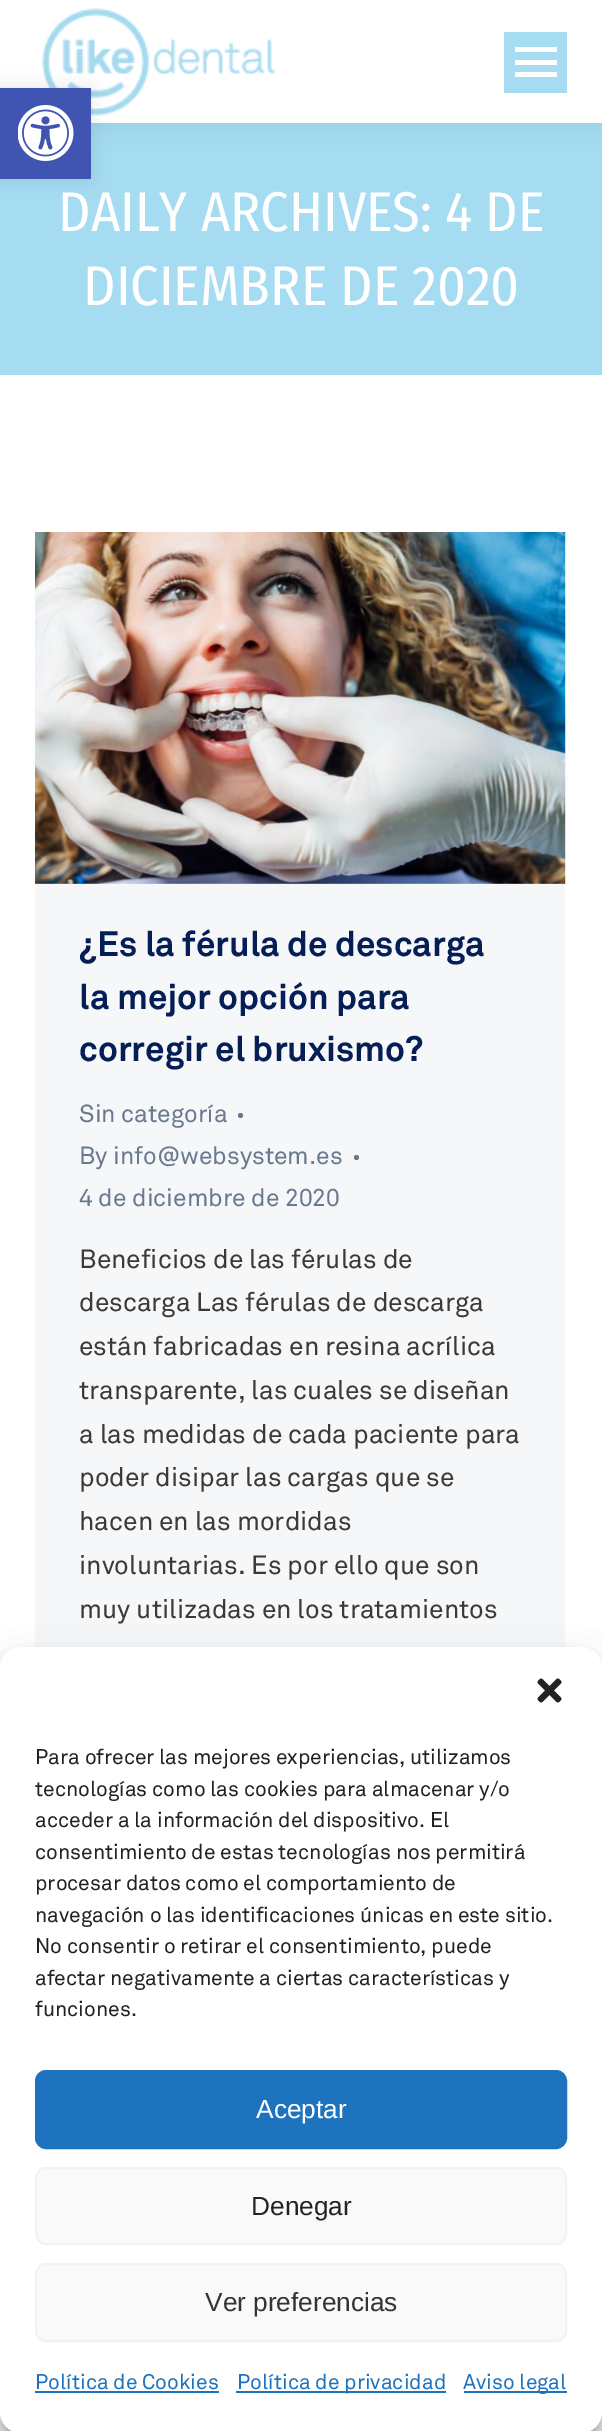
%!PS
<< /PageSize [602 2431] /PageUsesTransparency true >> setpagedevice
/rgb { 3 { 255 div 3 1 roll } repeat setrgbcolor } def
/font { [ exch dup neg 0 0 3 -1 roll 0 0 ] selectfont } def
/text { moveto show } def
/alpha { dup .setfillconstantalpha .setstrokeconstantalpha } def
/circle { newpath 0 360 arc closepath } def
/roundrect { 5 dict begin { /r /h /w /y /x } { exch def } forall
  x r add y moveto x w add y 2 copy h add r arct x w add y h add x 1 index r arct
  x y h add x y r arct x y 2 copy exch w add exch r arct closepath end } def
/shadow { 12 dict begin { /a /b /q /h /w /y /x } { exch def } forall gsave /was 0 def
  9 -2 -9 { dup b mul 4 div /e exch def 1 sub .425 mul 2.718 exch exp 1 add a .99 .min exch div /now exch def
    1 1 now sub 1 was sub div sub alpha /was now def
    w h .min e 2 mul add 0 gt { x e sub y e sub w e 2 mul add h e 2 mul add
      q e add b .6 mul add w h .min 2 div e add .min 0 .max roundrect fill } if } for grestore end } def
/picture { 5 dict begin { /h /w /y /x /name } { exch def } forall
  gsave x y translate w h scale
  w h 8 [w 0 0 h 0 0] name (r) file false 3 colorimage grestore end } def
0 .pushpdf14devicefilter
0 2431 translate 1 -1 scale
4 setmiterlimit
255 255 255 rgb
0 0 602 2431 rectfill
165 220 241 rgb
0 123 602 252 rectfill
0 0 0 rgb
-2 -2 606 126 0 13 0.07 shadow
255 255 255 rgb
0 0 602 123 rectfill
(img_02.rgb) 41 8 235 108 picture
0 0 0 rgb
0 88 91 91 0 9 0.1 shadow
64 84 178 rgb
0 88 91 91 rectfill
(img_01.rgb) 18 105 56 56 picture
165 220 241 rgb
504 32 63 61 rectfill
255 255 255 rgb
515 47 42 5 rectfill
515 60 42 5 rectfill
515 72 42 5 rectfill
246 247 248 rgb
35 883 530 764 rectfill
(img_03.rgb) 35 532 531 352 picture
106 121 144 rgb
240.5 1115.5 2.5 circle fill
356.5 1157.5 2.5 circle fill
0 0 0 rgb
0 1657 602 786 21 5 0.23 shadow
0 1664 602 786 21 17.5 0.19 shadow
255 255 255 rgb
0 1647 602 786 21 roundrect fill
(img_04.rgb) 537 1678 25 25 picture
30 115 190 rgb
36 2071 530 77 10 roundrect gsave fill grestore
2 setlinewidth
stroke
249 249 249 rgb
36 2168 530 76 10 roundrect gsave fill grestore
242 242 242 rgb
stroke
249 249 249 rgb
36 2264 530 77 10 roundrect gsave fill grestore
242 242 242 rgb
stroke
30 115 190 rgb
35 2391 184 2 rectfill
236 2391 210 2 rectfill
464 2391 103 2 rectfill
/FiraSansCondensed-Regular 56 font
255 255 255 rgb
(DAILY ARCHIVES: 4 DE) 58 231 text
(DICIEMBRE DE 2020) 83 305 text
/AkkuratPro-Bold 35 font
5 30 86 rgb
(¿Es la férula de descarga) 79 956 text
(la mejor opción para) 79 1009 text
(corregir el bruxismo?) 79 1061 text
/AkkuratPro-Regular 24.5 font
106 121 144 rgb
(Sin categoría) 79 1122 text
(By info@websystem.es) 79 1164 text
(4 de diciembre de 2020) 79 1206 text
/AkkuratPro-Regular 26.25 font
58 58 58 rgb
(Beneficios de las férulas de) 79 1268 text
(descarga Las férulas de descarga) 79 1311 text
(están fabricadas en resina acrílica) 79 1355 text
(transparente, las cuales se diseñan) 79 1399 text
(a las medidas de cada paciente para) 79 1443 text
(poder disipar las cargas que se) 79 1486 text
(hacen en las mordidas) 79 1530 text
(involuntarias. Es por ello que son) 79 1574 text
(muy utilizadas en los tratamientos) 79 1618 text
/AkkuratPro-Regular 21 font
34 34 34 rgb
(Para ofrecer las mejores experiencias, utilizamos) 35 1764 text
(tecnologías como las cookies para almacenar y/o) 35 1796 text
(acceder a la información del dispositivo. El) 35 1827 text
(consentimiento de estas tecnologías nos permitirá) 35 1859 text
(procesar datos como el comportamiento de) 35 1890 text
(navegación o las identificaciones únicas en este sitio.) 35 1922 text
(No consentir o retirar el consentimiento, puede) 35 1953 text
(afectar negativamente a ciertas características y) 35 1985 text
(funciones.) 35 2016 text
/LiberationSans-Regular 26.25 font
255 255 255 rgb
(Aceptar) 256 2118 text
34 34 34 rgb
(Denegar) 251 2215 text
51 51 51 rgb
(Ver preferencias) 205 2311 text
/AkkuratPro-Regular 21 font
30 115 190 rgb
(Política de Cookies) 35 2389 text
(Política de privacidad) 237 2389 text
(Aviso legal) 463 2389 text
.poppdf14devicefilter showpage
